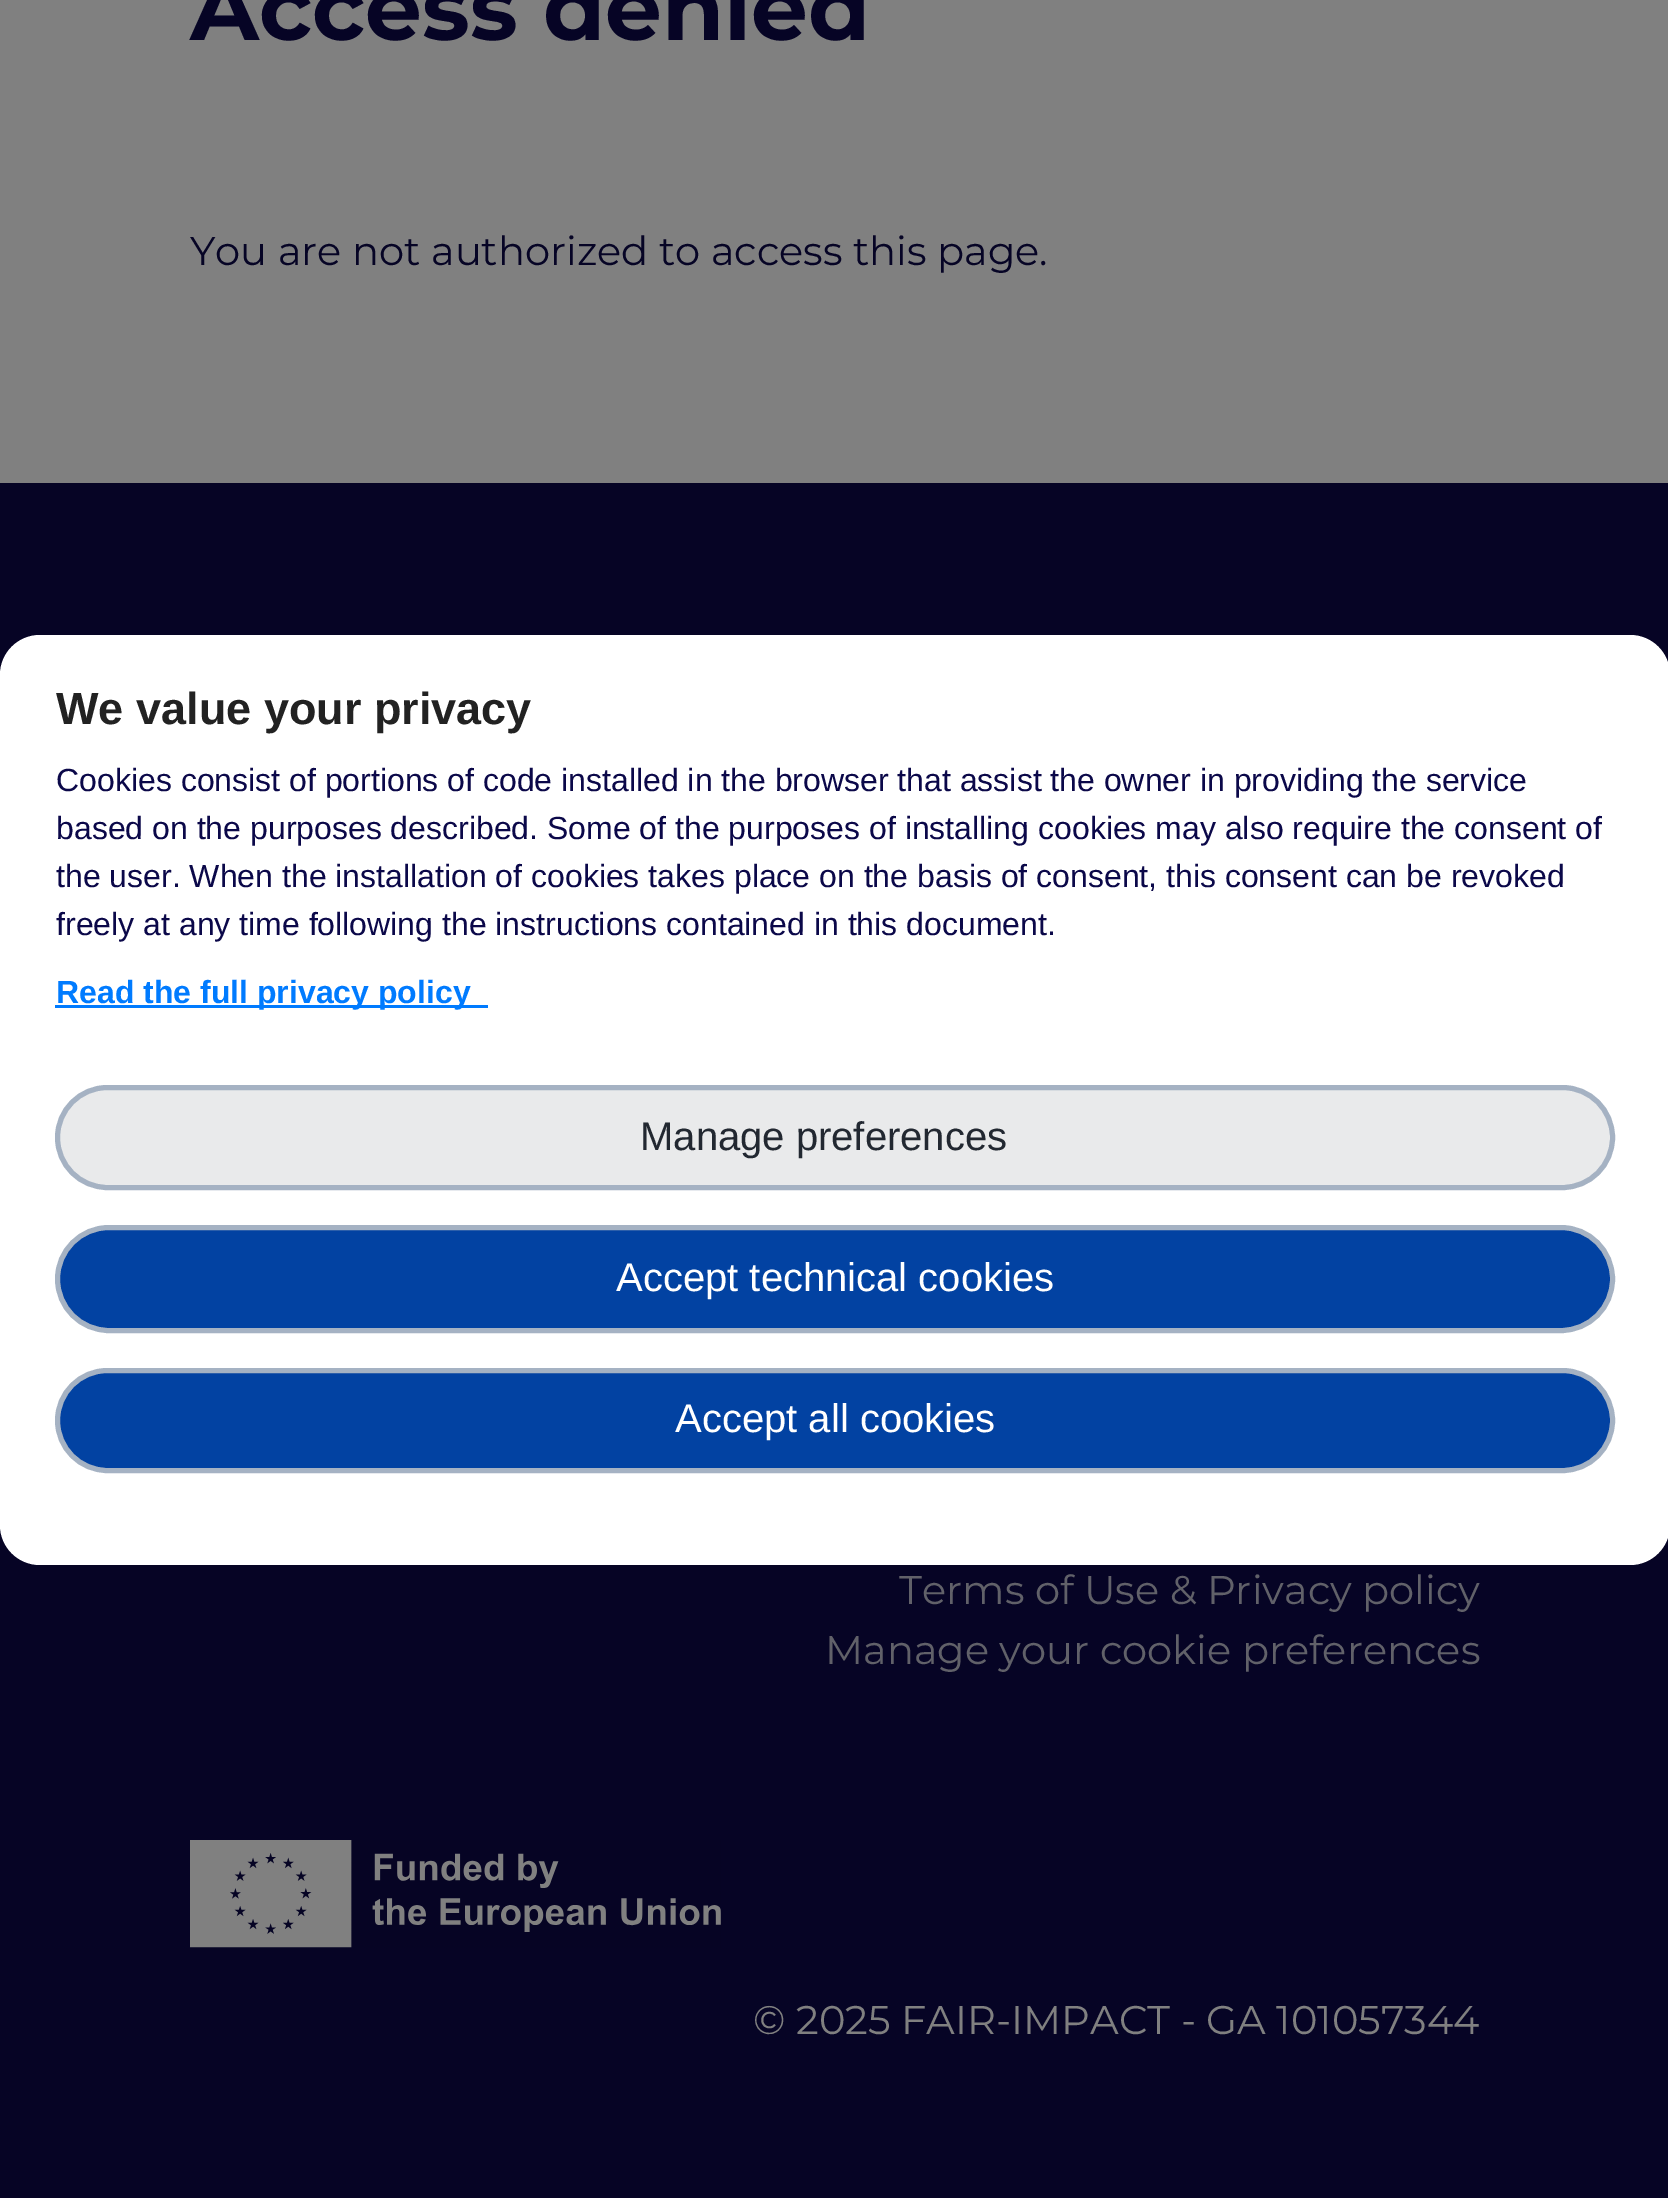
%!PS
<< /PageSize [1668 2198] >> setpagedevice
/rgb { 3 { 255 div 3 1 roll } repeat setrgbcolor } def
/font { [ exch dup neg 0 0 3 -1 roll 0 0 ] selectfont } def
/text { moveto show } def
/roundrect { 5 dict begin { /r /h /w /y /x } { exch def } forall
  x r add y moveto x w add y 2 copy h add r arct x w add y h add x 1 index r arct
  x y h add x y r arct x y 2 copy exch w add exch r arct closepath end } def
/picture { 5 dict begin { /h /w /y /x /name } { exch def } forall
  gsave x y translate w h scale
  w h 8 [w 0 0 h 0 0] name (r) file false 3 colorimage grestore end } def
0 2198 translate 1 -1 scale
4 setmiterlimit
128 128 128 rgb
0 0 1668 2198 rectfill
6 4 37 rgb
0 483 1668 1715 rectfill
(img_01.rgb) 190 1840 531 108 picture
255 255 255 rgb
0 635 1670 930 40 roundrect fill
0 123 255 rgb
55 1005 433 3 rectfill
233 234 235 rgb
57.5 1087.5 1555 100 50 roundrect gsave fill grestore
165 178 195 rgb
5 setlinewidth
stroke
2 66 162 rgb
57.5 1227.5 1555 103 51.5 roundrect gsave fill grestore
165 178 195 rgb
stroke
2 66 162 rgb
57.5 1370.5 1555 100 50 roundrect gsave fill grestore
165 178 195 rgb
stroke
/Montserrat-Bold 90 font
6 4 37 rgb
(Access denied) 190 40 text
/Montserrat-Regular 40 font
(You are not authorized to access this page.) 190 265 text
97 97 105 rgb
(Terms of Use & Privacy policy) 899 1604 text
(Manage your cookie preferences) 825 1664 text
128 128 128 rgb
(© 2025 FAIR-IMPACT - GA 101057344) 753 2034 text
/LiberationSans-Bold 45 font
34 34 34 rgb
(We value your privacy) 56 724 text
/LiberationSans-Regular 32 font
11 8 73 rgb
(Cookies consist of portions of code installed in the browser that assist the owner in providing the service) 56 791 text
(based on the purposes described. Some of the purposes of installing cookies may also require the consent of) 56 839 text
(the user. When the installation of cookies takes place on the basis of consent, this consent can be revoked) 56 887 text
(freely at any time following the instructions contained in this document.) 56 935 text
/LiberationSans-Bold 32 font
0 123 255 rgb
(Read the full privacy policy) 56 1003 text
/LiberationSans-Regular 40 font
34 40 49 rgb
(Manage preferences) 640 1150 text
255 255 255 rgb
(Accept technical cookies) 616 1291 text
(Accept all cookies) 675 1432 text
showpage
